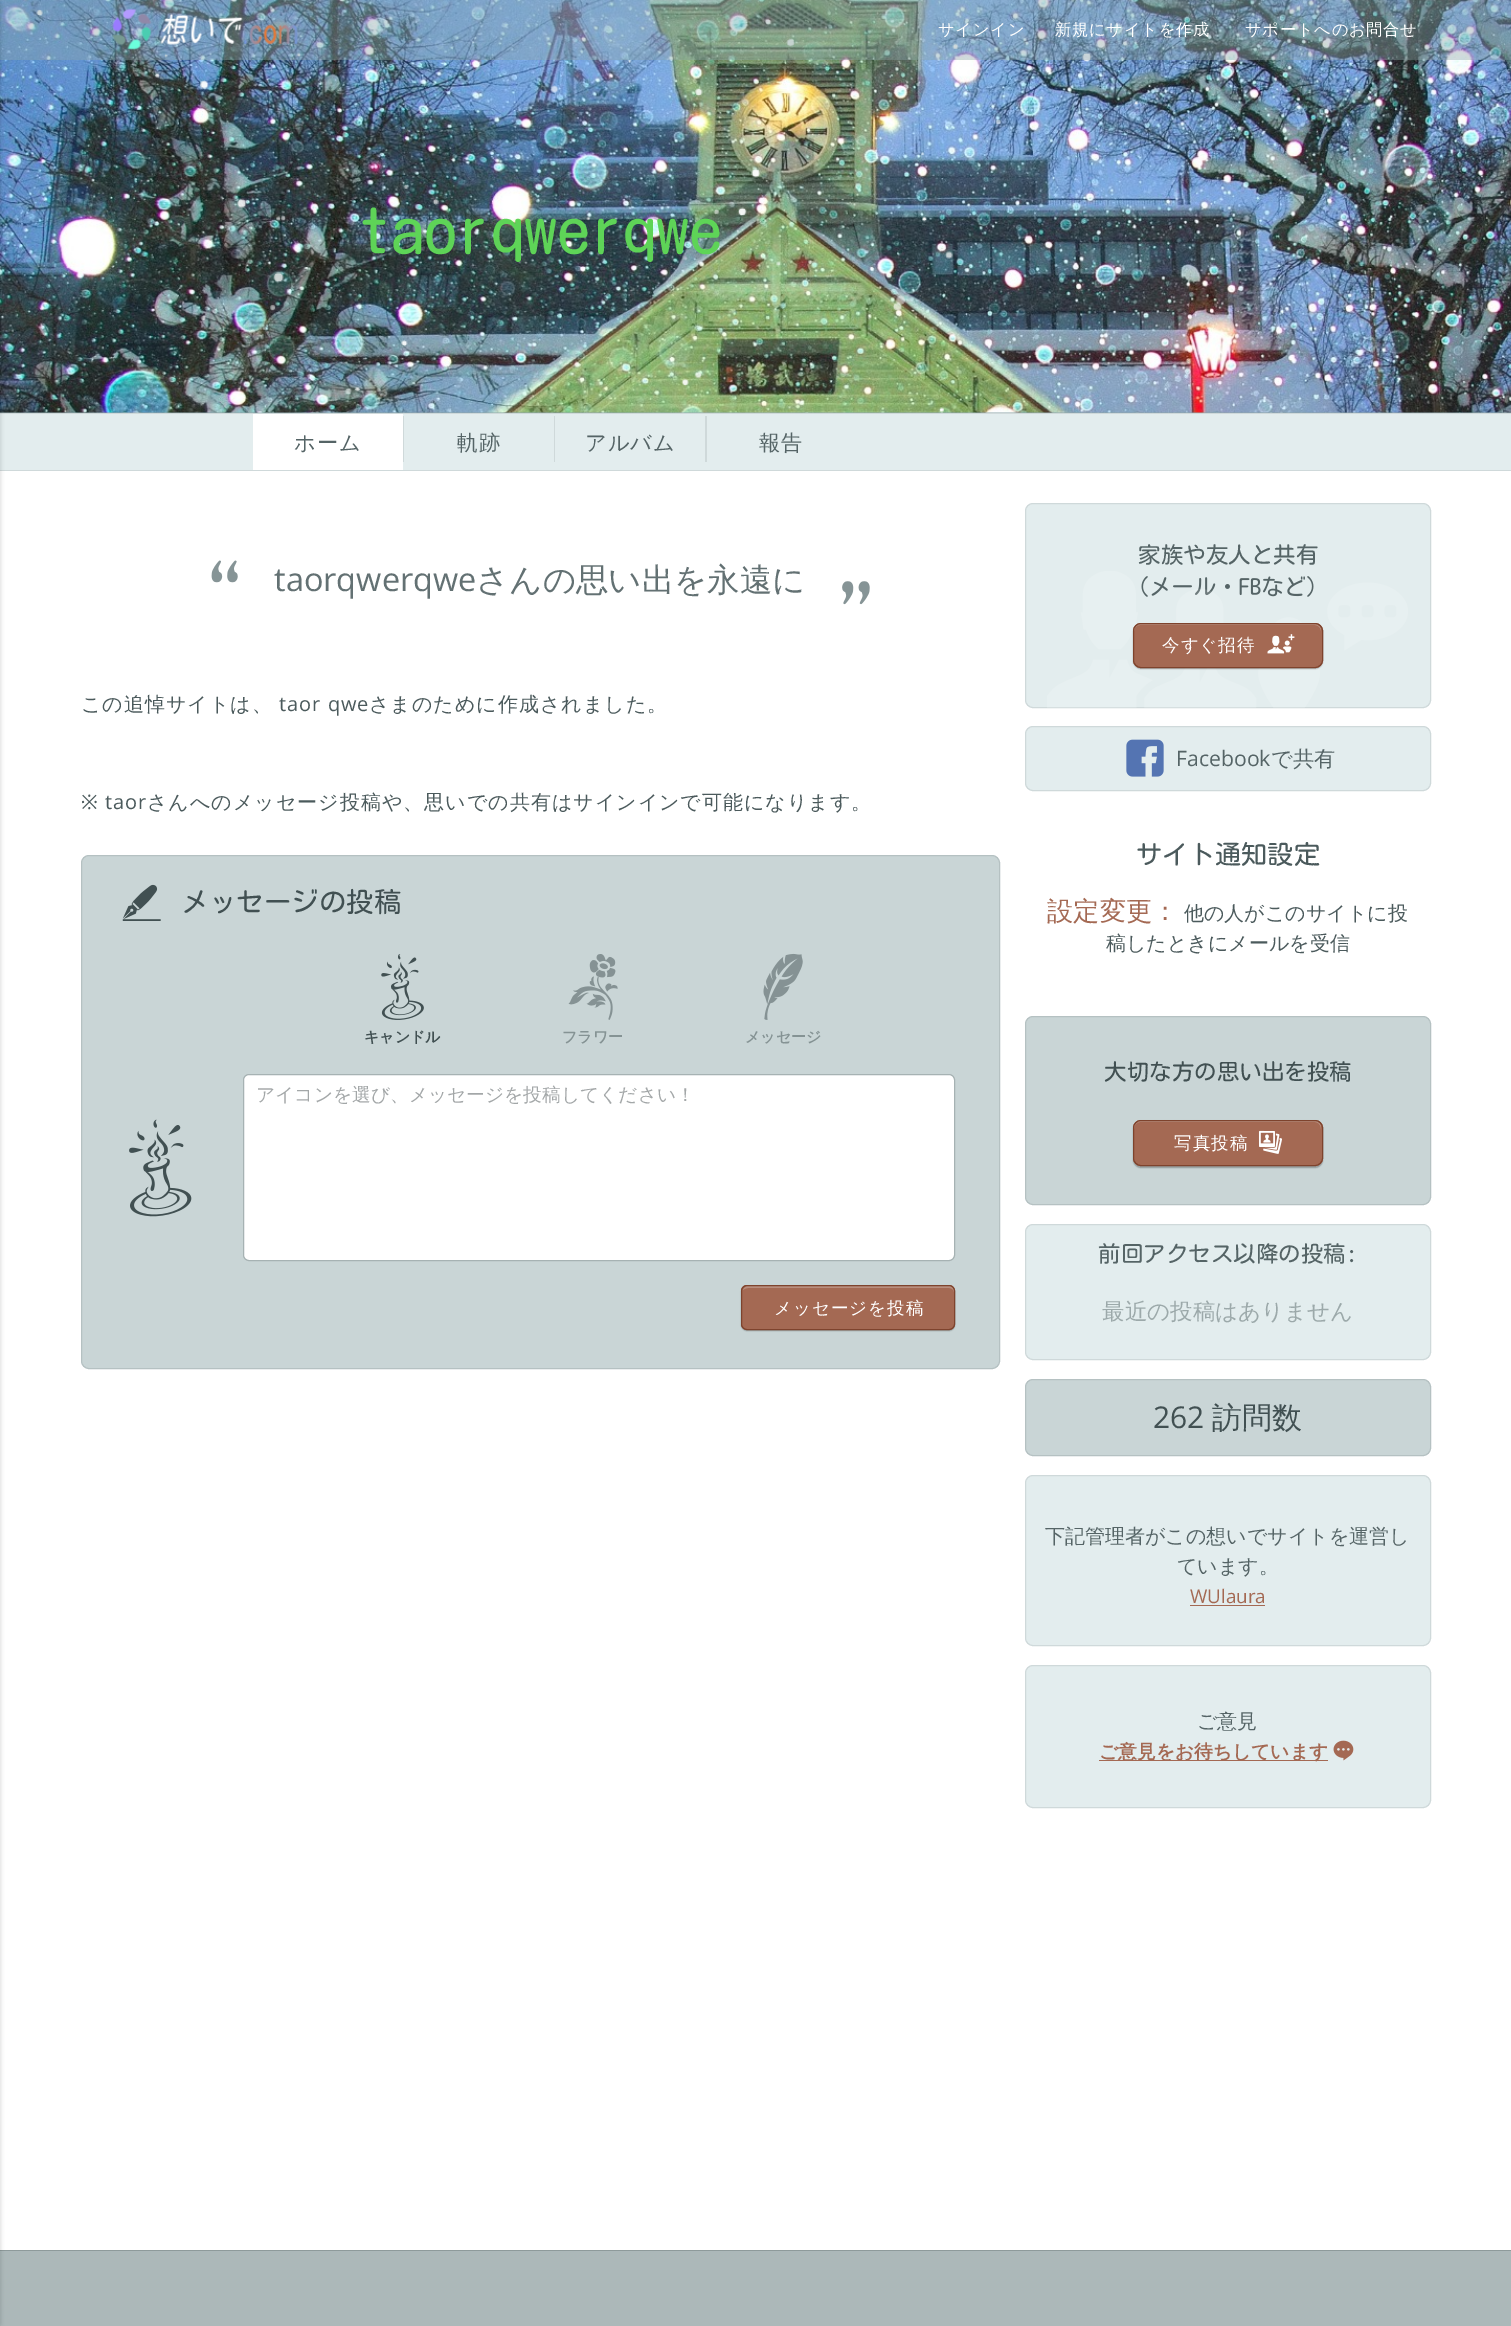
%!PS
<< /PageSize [1511 2326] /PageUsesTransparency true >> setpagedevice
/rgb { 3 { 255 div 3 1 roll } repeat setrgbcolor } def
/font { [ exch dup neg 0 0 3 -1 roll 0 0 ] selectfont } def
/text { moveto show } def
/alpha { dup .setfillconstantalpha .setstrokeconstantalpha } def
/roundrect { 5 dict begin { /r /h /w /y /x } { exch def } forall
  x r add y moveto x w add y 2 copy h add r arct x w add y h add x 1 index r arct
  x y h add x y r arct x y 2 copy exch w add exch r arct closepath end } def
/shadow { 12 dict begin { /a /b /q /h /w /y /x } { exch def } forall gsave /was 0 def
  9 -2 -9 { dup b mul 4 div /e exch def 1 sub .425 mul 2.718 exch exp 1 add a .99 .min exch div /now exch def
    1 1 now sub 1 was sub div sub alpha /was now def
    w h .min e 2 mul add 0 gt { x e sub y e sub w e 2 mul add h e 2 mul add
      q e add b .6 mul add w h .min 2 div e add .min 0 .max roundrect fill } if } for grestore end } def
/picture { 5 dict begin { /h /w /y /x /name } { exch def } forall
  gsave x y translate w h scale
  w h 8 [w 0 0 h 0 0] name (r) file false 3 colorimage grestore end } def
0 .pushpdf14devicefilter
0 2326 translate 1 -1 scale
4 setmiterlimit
255 255 255 rgb
0 0 1511 2326 rectfill
142 166 170 rgb
0 412 1511 1 rectfill
(img_02.rgb) 0 0 1511 413 picture
(img_03.rgb) 36 9 1103 404 picture
0.4 alpha
0 59 1511 1 rectfill
0 0 1511 59 rectfill
1 alpha
227 237 238 rgb
0 414 1511 56 rectfill
207 217 218 rgb
0 413 1511 1 rectfill
0 470 1511 1 rectfill
172 184 185 rgb
0 2251 1511 75 rectfill
142 154 155 rgb
0 2250 1511 1 rectfill
0 0 0 rgb
-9 3 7 2321 0 3 0.4 shadow
(img_01.rgb) 112 8 186 42 picture
255 255 255 rgb
253 414 150 56 rectfill
207 217 218 rgb
403 416 1 46 rectfill
554 416 1 46 rectfill
705 416 2 46 rectfill
(img_04.rgb) 211 560 27 23 picture
(img_05.rgb) 842 581 28 24 picture
201 213 214 rgb
81.5 855.5 918 513 7.5 roundrect gsave fill grestore
181 193 194 rgb
stroke
(img_06.rgb) 122 884 39 37 picture
(img_07.rgb) 129 1119 63 98 picture
(img_08.rgb) 381 954 43 66 picture
(img_09.rgb) 568 954 50 66 picture
(img_10.rgb) 763 953 40 67 picture
255 255 255 rgb
243.5 1074.5 711 186 5.5 roundrect gsave fill grestore
166 178 179 rgb
stroke
0 0 0 rgb
741 1286 214 45 6 0.5 0.25 shadow
164 105 83 rgb
741 1285 214 45 6 roundrect fill
184 142 126 rgb
748 1288 moveto 201 0 rlineto 3 0 5 2 5 4 rcurveto 0 -1 rlineto 0 -3 -2 -5 -5 -5 rcurveto -201 0 rlineto -2 0 -4 2 -5 4 rcurveto 1 -1 3 -2 5 -2 rcurveto closepath fill
126 67 45 rgb
741.5 1285.5 213 44 5.5 roundrect stroke
227 237 238 rgb
1025.5 503.5 405 204 7.5 roundrect gsave fill grestore
207 217 218 rgb
stroke
227 237 238 rgb
1025.5 726.5 405 64 7.5 roundrect gsave fill grestore
207 217 218 rgb
stroke
(img_13.rgb) 1126 739 38 38 picture
201 213 214 rgb
1025.5 1016.5 405 188 7.5 roundrect gsave fill grestore
181 193 194 rgb
stroke
0 0 0 rgb
1133 1121 190 47 8 0.5 0.25 shadow
164 105 83 rgb
1133 1120 190 46 8 roundrect fill
184 142 126 rgb
1140 1122 moveto 175 0 rlineto 3 0 6 3 6 7 rcurveto 0 -2 rlineto 0 -3 -3 -6 -6 -6 rcurveto -175 0 rlineto -3 0 -6 3 -6 6 rcurveto 0 2 rlineto 0 -4 3 -7 6 -7 rcurveto closepath fill
126 67 45 rgb
1133.5 1120.5 189 45 7.5 roundrect stroke
(img_14.rgb) 1258 1130 24 24 picture
227 237 238 rgb
1025.5 1224.5 405 135 7.5 roundrect gsave fill grestore
207 217 218 rgb
stroke
201 213 214 rgb
1025.5 1379.5 405 76 7.5 roundrect gsave fill grestore
181 193 194 rgb
stroke
227 237 238 rgb
1025.5 1475.5 405 170 7.5 roundrect gsave fill grestore
207 217 218 rgb
stroke
164 105 83 rgb
1190 1605 75 1 rectfill
227 237 238 rgb
1025.5 1665.5 405 142 7.5 roundrect gsave fill grestore
207 217 218 rgb
stroke
164 105 83 rgb
1099 1760 229 1 rectfill
(img_15.rgb) 1333 1740 21 21 picture
/WenQuanYiZenHei-Medium 16.25 font
255 255 255 rgb
938 35 moveto 0.75 0 (サインイン) ashow
1055 35 moveto 0.75 0 (新規にサイトを作成) ashow
1245 35 moveto 0.75 0 (サポートへのお問合せ) ashow
/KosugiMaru-Regular 66.25 font
94 212 87 rgb
(taorqwerqwe) 358 254 text
/WenQuanYiZenHei-Medium 21.25 font
85 100 102 rgb
294 450 moveto 1 0 (ホーム) ashow
457 450 moveto 1 0 (軌跡) ashow
585 450 moveto 1 0 (アルバム) ashow
759 450 moveto 1 0 (報告) ashow
/OpenSans-Regular 32.5 font
99 113 115 rgb
(taorqwerqwe) 274 591 text
/WenQuanYiZenHei-Medium 32.5 font
(さんの思い出を永遠に) 476 591 text
/WenQuanYiZenHei-Medium 20 font
75 90 92 rgb
81 711 moveto 1 0 (この追悼サイトは、) ashow
/OpenSans-Regular 20 font
279 711 moveto 1 0 (taor qwe) ashow
/WenQuanYiZenHei-Medium 20 font
369 711 moveto 1 0 (さまのために作成されました。) ashow
/NotoSans-Regular 20 font
81 809 moveto 1 0 (※) ashow
/OpenSans-Regular 20 font
105 809 moveto 1 0 (taor) ashow
/WenQuanYiZenHei-Medium 20 font
147 809 moveto 1 0 (さんへのメッセージ投稿や、思いでの共有はサインインで可能になります。) ashow
/KosugiMaru-Regular 27.5 font
65 80 82 rgb
(メッセージの投稿) 181 912 text
/WenQuanYiZenHei-Bold 15 font
(キャンドル) 364 1042 text
133 147 148 rgb
(フラワー) 562 1042 text
(メッセージ) 745 1042 text
/WenQuanYiZenHei-Medium 18.75 font
163 167 168 rgb
(アイコンを選び、メッセージを投稿してください！) 256 1101 text
/WenQuanYiZenHei-Medium 17.5 font
255 255 255 rgb
774 1314 moveto 1 0 (メッセージを投稿) ashow
/KosugiMaru-Regular 22.5 font
85 100 102 rgb
(家族や友人と共有) 1138 563 text
(（メール・FBなど）) 1126 595 text
(img_11.rgb) 1047 571 361 137 picture
0 0 0 rgb
1133 624 190 45 8 0.5 0.25 shadow
164 105 83 rgb
1133 623 190 45 8 roundrect fill
184 142 126 rgb
1140 625 moveto 175 0 rlineto 3 0 6 3 6 6 rcurveto 0 -1 rlineto 0 -3 -3 -6 -6 -6 rcurveto -175 0 rlineto -3 0 -6 3 -6 6 rcurveto 0 1 rlineto 0 -3 3 -6 6 -6 rcurveto closepath fill
126 67 45 rgb
1133.5 623.5 189 44 7.5 roundrect stroke
/WenQuanYiZenHei-Medium 17.5 font
255 255 255 rgb
1162 651 moveto 1 0 (今すぐ招待) ashow
(img_12.rgb) 1267 634 28 20 picture
/OpenSans-Regular 21.25 font
85 100 102 rgb
(Facebook) 1176 766 text
/WenQuanYiZenHei-Medium 21.25 font
(で共有) 1271 766 text
/KosugiMaru-Regular 26.25 font
75 90 92 rgb
(サイト通知設定) 1136 864 text
/WenQuanYiZenHei-Medium 26.25 font
164 105 83 rgb
(設定変更：) 1047 920 text
/WenQuanYiZenHei-Medium 20 font
75 90 92 rgb
(他の人がこのサイトに投) 1184 920 text
(稿したときにメールを受信) 1106 950 text
/KosugiMaru-Regular 22.5 font
65 80 82 rgb
(大切な方の思い出を投稿) 1104 1080 text
/WenQuanYiZenHei-Medium 17.5 font
255 255 255 rgb
1174 1149 moveto 1 0 (写真投稿) ashow
/KosugiMaru-Regular 22.5 font
85 100 102 rgb
(前回アクセス以降の投稿:) 1098 1262 text
/WenQuanYiZenHei-Medium 22.5 font
156 169 170 rgb
(最近の投稿はありません) 1102 1319 text
/OpenSans-Regular 30 font
65 80 82 rgb
(262) 1153 1428 text
/WenQuanYiZenHei-Medium 30 font
(訪問数) 1212 1428 text
/WenQuanYiZenHei-Medium 20 font
85 100 102 rgb
(下記管理者がこの想いでサイトを運営し) 1045 1543 text
(ています。) 1177 1573 text
/OpenSans-Regular 18.75 font
164 105 83 rgb
(WUlaura) 1190 1603 text
/WenQuanYiZenHei-Medium 20 font
85 100 102 rgb
(ご意見) 1197 1728 text
/WenQuanYiZenHei-Bold 18.75 font
164 105 83 rgb
(ご意見をお待ちしています) 1099 1758 text
.poppdf14devicefilter showpage
